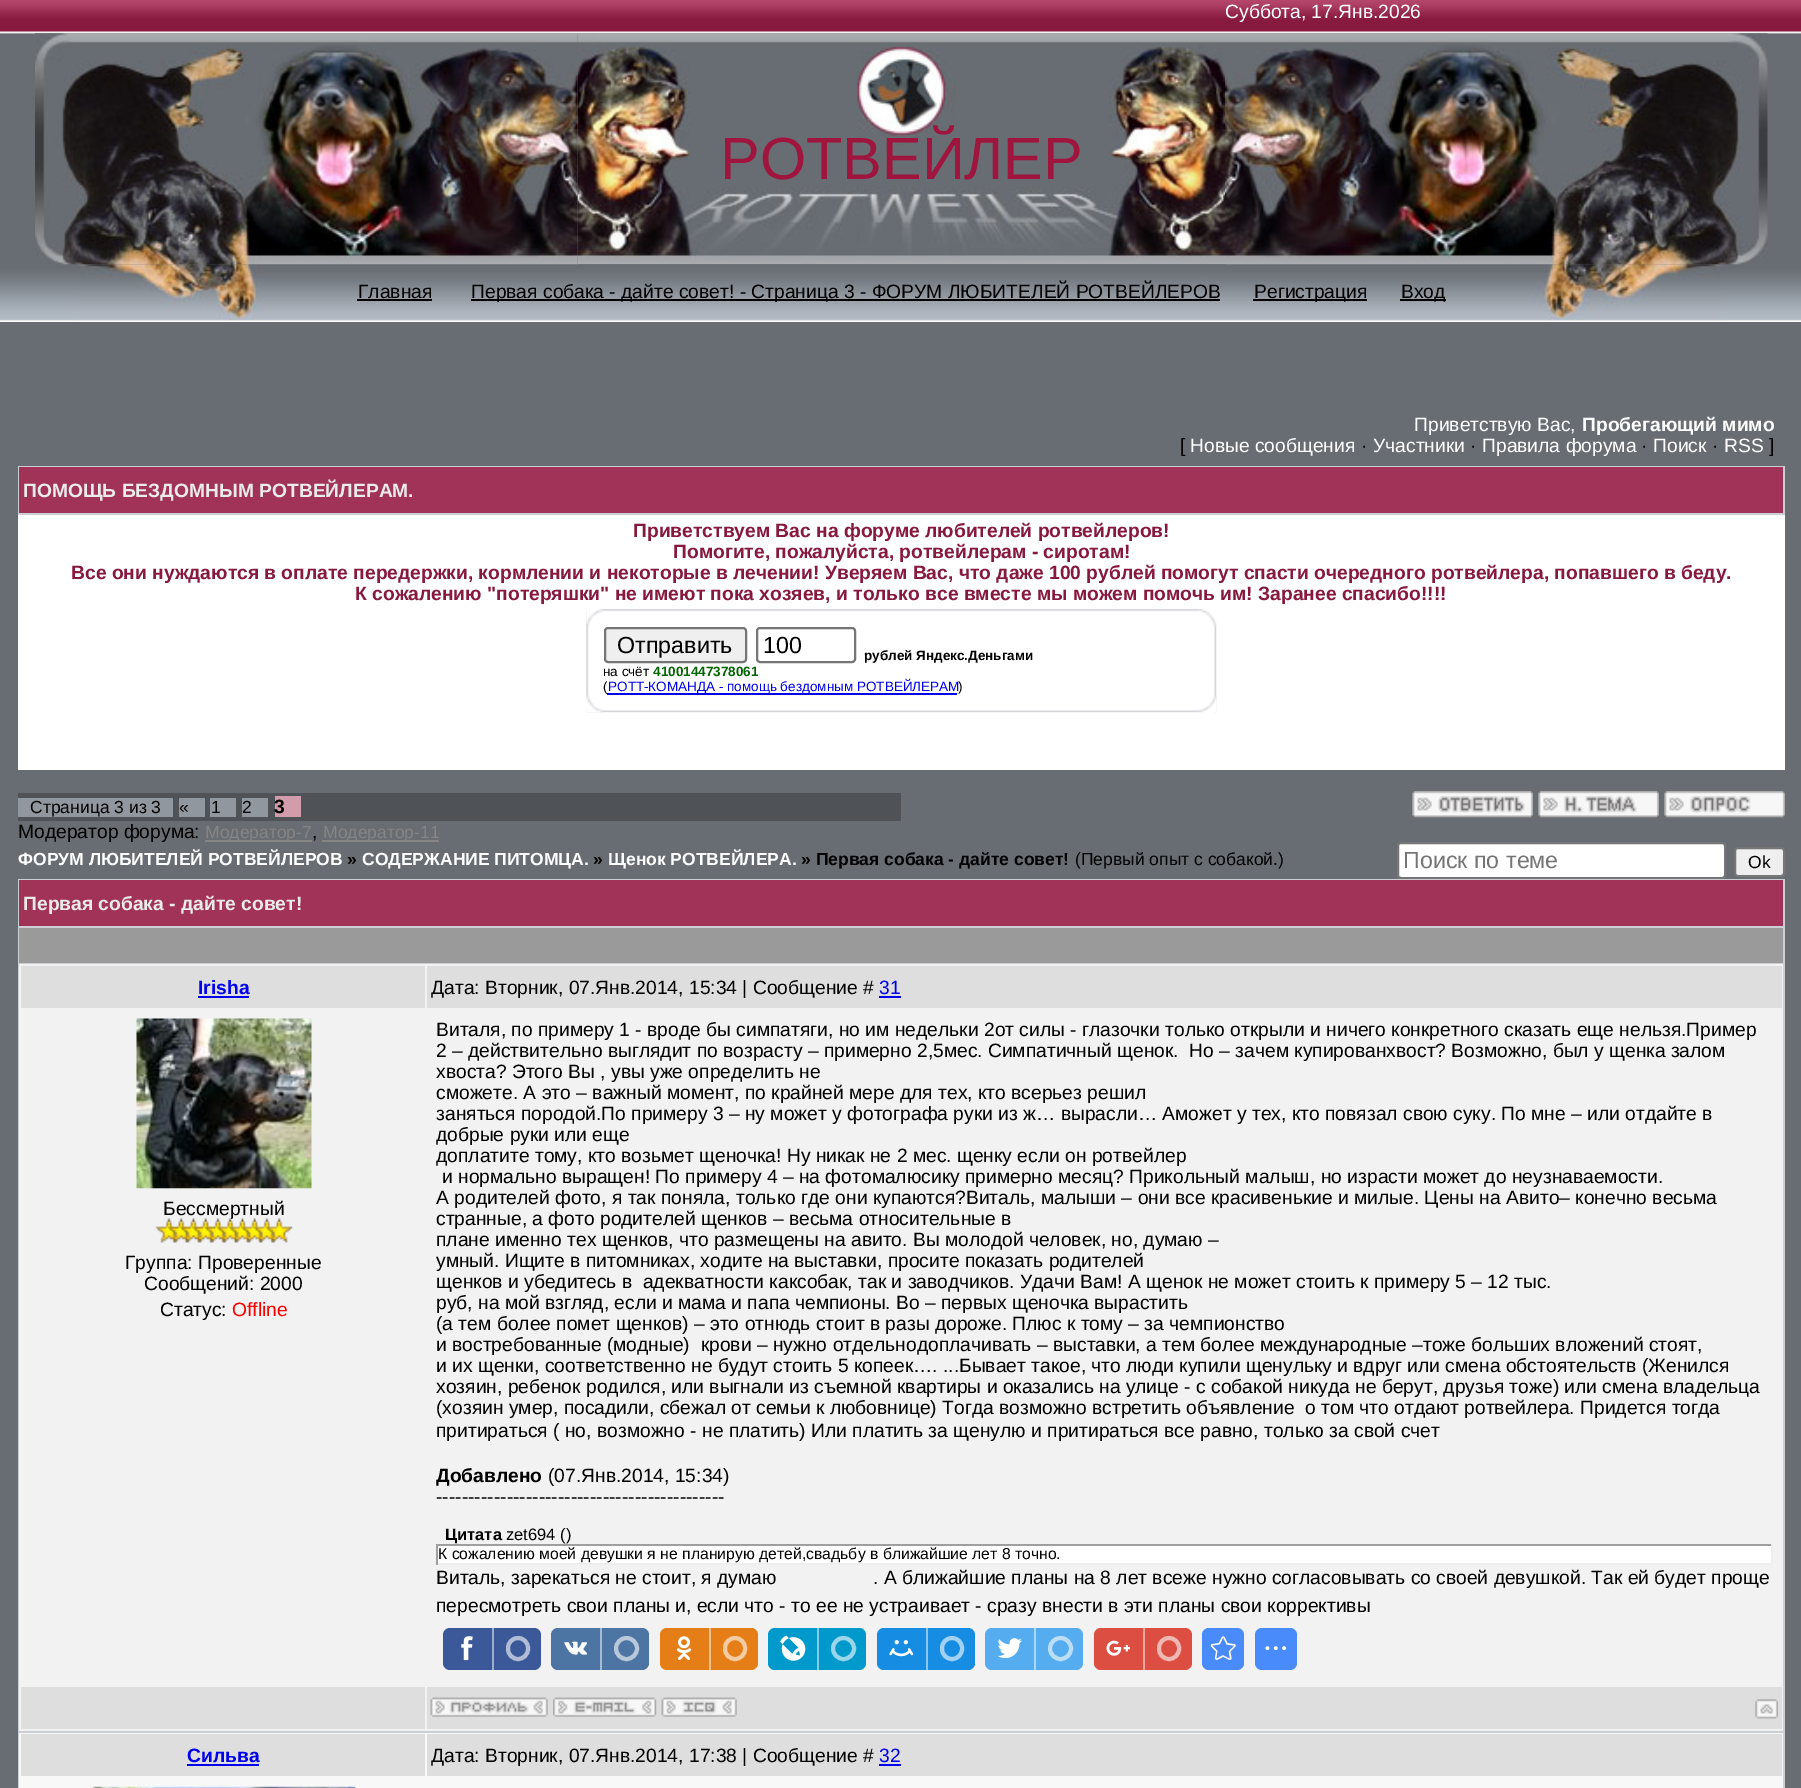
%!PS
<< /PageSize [1801 1788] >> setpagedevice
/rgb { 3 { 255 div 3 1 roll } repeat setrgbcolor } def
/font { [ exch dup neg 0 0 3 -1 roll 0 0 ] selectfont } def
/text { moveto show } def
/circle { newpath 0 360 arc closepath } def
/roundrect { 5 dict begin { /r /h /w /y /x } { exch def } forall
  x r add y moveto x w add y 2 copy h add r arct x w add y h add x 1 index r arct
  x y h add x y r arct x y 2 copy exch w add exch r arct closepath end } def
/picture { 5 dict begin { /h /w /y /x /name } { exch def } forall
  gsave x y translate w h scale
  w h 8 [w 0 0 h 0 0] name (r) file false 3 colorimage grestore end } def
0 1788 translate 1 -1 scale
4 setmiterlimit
104 109 115 rgb
0 0 1801 1788 rectfill
(img_01.rgb) 0 0 1801 322 picture
(img_03.rgb) 577 33 648 232 picture
(img_05.rgb) 78 264 1644 57 picture
(img_02.rgb) 35 33 543 232 picture
(img_04.rgb) 1225 33 543 232 picture
0 0 0 rgb
357 299 75 2 rectfill
471 299 749 2 rectfill
1253 299 114 2 rectfill
1400 299 46 2 rectfill
203 206 210 rgb
18 466 1767 49 rectfill
160 51 87 rgb
19 467 1764 46 rectfill
255 255 255 rgb
18 515 1767 255 rectfill
(img_06.rgb) 1198 609 19 104 picture
(img_07.rgb) 586 695 631 18 picture
(img_08.rgb) 586 609 18 104 picture
(img_09.rgb) 586 609 613 17 picture
239 239 239 rgb
605 628 141 34 3 roundrect gsave fill grestore
118 118 118 rgb
2 setlinewidth
stroke
757 628 98 34 3 roundrect stroke
79 83 87 rgb
18 793 883 28 rectfill
145 151 159 rgb
18 798 155 19 rectfill
179 798 26 19 rectfill
210 798 26 19 rectfill
242 798 26 19 rectfill
211 156 170 rgb
275 796 26 21 rectfill
(img_10.rgb) 1412 791 121 27 picture
(img_11.rgb) 1538 791 121 27 picture
(img_12.rgb) 1664 791 121 27 picture
133 133 133 rgb
205 840 107 2 rectfill
322 840 117 2 rectfill
255 255 255 rgb
1398 843 327 35 3 roundrect gsave fill grestore
118 118 118 rgb
stroke
239 239 239 rgb
1735 848 49 28 3 roundrect gsave fill grestore
118 118 118 rgb
stroke
203 206 210 rgb
18 879 1767 909 rectfill
160 51 87 rgb
19 880 1764 46 rectfill
154 154 154 rgb
19 928 1764 35 rectfill
242 242 242 rgb
19 964 1764 767 rectfill
222 222 222 rgb
21 966 404 42 rectfill
0 0 238 rgb
198 996 51 2 rectfill
222 222 222 rgb
427 966 1355 42 rectfill
0 0 238 rgb
879 996 22 2 rectfill
(img_13.rgb) 136 1018 176 171 picture
255 255 255 rgb
438 1546 1333 17 rectfill
159 159 159 rgb
436 1544 1337 2 rectfill
238 238 238 rgb
1771 1544 2 21 rectfill
436 1563 1337 2 rectfill
159 159 159 rgb
436 1544 2 21 rectfill
59 89 152 rgb
443 1628 98 42 7 roundrect fill
(img_15.rgb) 461 1636 12 25 picture
157 172 204 rgb
492 1628 2 42 rectfill
177 189 214 rgb
4 setlinewidth
508 1638 20 21 10 roundrect stroke
77 117 163 rgb
551 1628 98 42 7 roundrect fill
(img_16.rgb) 564 1641 24 14 picture
166 186 209 rgb
600 1628 2 42 rectfill
184 200 218 rgb
626.5 1648.5 10.5 circle stroke
230 126 23 rgb
660 1628 98 42 7 roundrect fill
(img_17.rgb) 676 1636 16 24 picture
243 191 139 rgb
709 1628 2 42 rectfill
245 203 162 rgb
725 1638 20 21 10 roundrect stroke
0 153 204 rgb
768 1628 98 42 7 roundrect fill
(img_18.rgb) 780 1635 26 26 picture
128 204 230 rgb
817 1628 2 42 rectfill
153 214 235 rgb
843.5 1648.5 10.5 circle stroke
22 141 226 rgb
877 1628 98 42 7 roundrect fill
(img_19.rgb) 889 1640 25 17 picture
139 198 241 rgb
926 1628 2 42 rectfill
162 209 243 rgb
942 1638 20 21 10 roundrect stroke
85 172 238 rgb
985 1628 98 42 7 roundrect fill
(img_20.rgb) 997 1638 25 21 picture
170 214 247 rgb
1034 1628 2 42 rectfill
187 222 248 rgb
1060.5 1648.5 10.5 circle stroke
220 78 65 rgb
1094 1628 98 42 7 roundrect fill
(img_21.rgb) 1106 1640 25 16 picture
238 167 160 rgb
1143 1628 2 42 rectfill
241 184 179 rgb
1159 1638 20 21 10 roundrect stroke
73 139 250 rgb
1202 1628 42 42 7 roundrect fill
(img_22.rgb) 1210 1636 26 24 picture
1255 1628 42 42 7 roundrect fill
(img_23.rgb) 1265 1646 22 5 picture
222 222 222 rgb
21 1687 404 42 rectfill
427 1687 1355 42 rectfill
(img_24.rgb) 430 1697 118 20 picture
(img_25.rgb) 553 1697 104 20 picture
(img_26.rgb) 661 1697 76 20 picture
(img_27.rgb) 1755 1699 23 20 picture
248 248 248 rgb
19 1733 1764 55 rectfill
222 222 222 rgb
21 1734 404 42 rectfill
0 0 238 rgb
187 1764 72 2 rectfill
222 222 222 rgb
427 1734 1355 42 rectfill
0 0 238 rgb
879 1764 22 2 rectfill
(img_28.rgb) 92 1786 264 2 picture
/LiberationSans-Regular 19.25 font
255 255 255 rgb
(Суббота, 17.Янв.2026) 1225 18 text
/LiberationSans-Regular 59.5 font
160 21 62 rgb
(РОТВЕЙЛЕР) 720 179 text
/LiberationSans-Regular 19.25 font
0 0 0 rgb
(Главная) 358 298 text
(Первая собака - дайте совет! - Страница 3 - ФОРУМ ЛЮБИТЕЛЕЙ РОТВЕЙЛЕРОВ) 471 298 text
(Регистрация) 1254 298 text
(Вход) 1401 298 text
255 255 255 rgb
(Приветствую Вас,) 1414 431 text
/LiberationSans-Bold 19.25 font
(Пробегающий мимо) 1582 431 text
/LiberationSans-Regular 19.25 font
0 0 0 rgb
([) 1180 452 text
255 255 255 rgb
(Новые сообщения) 1190 452 text
0 0 0 rgb
(·) 1361 452 text
255 255 255 rgb
(Участники) 1373 452 text
0 0 0 rgb
(·) 1470 452 text
255 255 255 rgb
(Правила форума) 1482 452 text
0 0 0 rgb
(·) 1641 452 text
255 255 255 rgb
(Поиск) 1653 452 text
0 0 0 rgb
(·) 1712 452 text
255 255 255 rgb
(RSS) 1724 452 text
0 0 0 rgb
(]) 1769 452 text
/LiberationSans-Bold 19.25 font
235 235 235 rgb
(ПОМОЩЬ БЕЗДОМНЫМ РОТВЕЙЛЕРАМ.) 23 497 text
134 25 61 rgb
(Приветствуем Вас на форуме любителей ротвейлеров!) 633 537 text
(Помогите, пожалуйста, ротвейлерам - сиротам!) 673 558 text
(Все они нуждаются в оплате передержки, кормлении и некоторые в лечении! Уверяем Вас, что даже 100 рублей помогут спасти очередного ротвейлера, попавшего в беду.) 71 579 text
(К сожалению "потеряшки" не имеют пока хозяев, и только все вместе мы можем помочь им! Заранее cпасибо!!!!) 355 600 text
/LiberationSans-Regular 23.25 font
0 0 0 rgb
(Отправить) 617 653 text
(100) 763 653 text
/LiberationSans-Bold 13.5 font
(рублей Яндекс.Деньгами) 864 660 text
/LiberationSans-Regular 13.5 font
(на счёт) 603 676 text
/LiberationSans-Bold 13.5 font
0 102 0 rgb
(41001447378061) 653 676 text
/LiberationSans-Regular 13.5 font
0 0 0 rgb
(\() 603 691 text
0 0 238 rgb
607 693 350 2 rectfill
(РОТТ-КОМАНДА - помощь бездомным РОТВЕЙЛЕРАМ) 608 691 text
0 0 0 rgb
(\)) 958 691 text
/LiberationSans-Regular 17.5 font
(Страница 3 из 3) 30 813 text
(«) 179 813 text
(1) 211 813 text
(2) 242 813 text
/LiberationSans-Bold 19.25 font
(3) 274 813 text
/LiberationSans-Regular 19.25 font
(Модератор форума:) 18 838 text
/LiberationSans-Regular 17.5 font
133 133 133 rgb
(Модератор-7) 205 838 text
/LiberationSans-Regular 19.25 font
0 0 0 rgb
(,) 312 838 text
/LiberationSans-Regular 17.5 font
133 133 133 rgb
(Модератор-11) 323 838 text
/LiberationSans-Bold 17.5 font
255 255 255 rgb
(ФОРУМ ЛЮБИТЕЛЕЙ РОТВЕЙЛЕРОВ) 18 865 text
0 0 0 rgb
(») 347 865 text
255 255 255 rgb
(СОДЕРЖАНИЕ ПИТОМЦА.) 362 865 text
0 0 0 rgb
(») 593 865 text
255 255 255 rgb
(Щенок РОТВЕЙЛЕРА.) 608 865 text
0 0 0 rgb
(» Первая собака - дайте совет!) 801 865 text
/LiberationSans-Regular 17.5 font
(\(Первый опыт с собакой.\)) 1075 865 text
/LiberationSans-Regular 23.25 font
117 117 117 rgb
(Поиск по теме) 1403 868 text
/LiberationSans-Regular 17.5 font
0 0 0 rgb
(Ok) 1748 868 text
/LiberationSans-Bold 19.25 font
235 235 235 rgb
(Первая собака - дайте совет!) 23 910 text
0 0 238 rgb
(Irisha) 198 994 text
/LiberationSans-Regular 19.25 font
0 0 0 rgb
(Дата: Вторник, 07.Янв.2014, 15:34 | Сообщение #) 431 994 text
0 0 238 rgb
(31) 879 994 text
0 0 0 rgb
(Бессмертный) 163 1215 text
(img_14.rgb) 155 1218 138 25 picture
(Группа: Проверенные) 125 1269 text
(Сообщений: 2000) 144 1290 text
(Статус:) 160 1316 text
255 0 0 rgb
(Offline) 232 1316 text
0 0 0 rgb
(Виталя, по примеру 1 - вроде бы симпатяги, но им недельки 2от силы - глазочки только открыли и ничего конкретного сказать еще нельзя.Пример) 436 1036 text
(2 – действительно выглядит по возрасту – примерно 2,5мес. Симпатичный щенок.  Но – зачем купированхвост? Возможно, был у щенка залом) 436 1057 text
(хвоста? Этого Вы , увы уже определить не) 436 1078 text
(сможете. А это – важный момент, по крайней мере для тех, кто всерьез решил) 436 1099 text
(заняться породой.По примеру 3 – ну может у фотографа руки из ж… вырасли… Аможет у тех, кто повязал свою суку. По мне – или отдайте в) 436 1120 text
(добрые руки или еще) 436 1141 text
(доплатите тому, кто возьмет щеночка! Ну никак не 2 мес. щенку если он ротвейлер) 436 1162 text
(и нормально выращен! По примеру 4 – на фотомалюсику примерно месяц? Прикольный малыш, но израсти может до неузнаваемости.) 442 1183 text
(А родителей фото, я так поняла, только где они купаются?Виталь, малыши – они все красивенькие и милые. Цены на Авито– конечно весьма) 436 1204 text
(странные, а фото родителей щенков – весьма относительные в) 436 1225 text
(плане именно тех щенков, что размещены на авито. Вы молодой человек, но, думаю –) 436 1246 text
(умный. Ищите в питомниках, ходите на выставки, просите показать родителей) 436 1267 text
(щенков и убедитесь в  адекватности каксобак, так и заводчиков. Удачи Вам! А щенок не может стоить к примеру 5 – 12 тыс.) 436 1288 text
(руб, на мой взгляд, если и мама и папа чемпионы. Во – первых щеночка вырастить) 436 1309 text
(\(а тем более помет щенков\) – это отнюдь стоит в разы дороже. Плюс к тому – за чемпионство) 436 1330 text
(и востребованные \(модные\)  крови – нужно отдельнодоплачивать – выставки, а тем более международные –тоже больших вложений стоят,) 436 1351 text
(и их щенки, соответственно не будут стоить 5 копеек…. ...Бывает такое, что люди купили щенульку и вдруг или смена обстоятельств \(Женился) 436 1372 text
(хозяин, ребенок родился, или выгнали из съемной квартиры и оказались на улице - с собакой никуда не берут, друзья тоже\) или смена владельца) 436 1393 text
(\(хозяин умер, посадили, сбежал от семьи к любовнице\) Тогда возможно встретить объявление  о том что отдают ротвейлера. Придется тогда) 436 1414 text
(притираться \( но, возможно - не платить\) Или платить за щенулю и притираться все равно, только за свой счет) 436 1437 text
/LiberationSans-Bold 19.25 font
(Добавлено) 436 1482 text
/LiberationSans-Regular 19.25 font
(\(07.Янв.2014, 15:34\)) 548 1482 text
(---------------------------------------------) 436 1503 text
/LiberationSans-Bold 16.5 font
(Цитата) 445 1540 text
/LiberationSans-Regular 16.5 font
(zet694 \(\)) 506 1540 text
/LiberationSans-Regular 15.75 font
(К сожалению моей девушки я не планирую детей,свадьбу в ближайшие лет 8 точно.) 438 1559 text
/LiberationSans-Regular 19.25 font
(Виталь, зарекаться не стоит, я думаю) 436 1584 text
(. А ближайшие планы на 8 лет всеже нужно согласовывать со своей девушкой. Так ей будет проще) 873 1584 text
(пересмотреть свои планы и, если что - то ее не устраивает - сразу внести в эти планы свои коррективы) 436 1612 text
/LiberationSans-Bold 19.25 font
0 0 238 rgb
(Сильва) 187 1762 text
/LiberationSans-Regular 19.25 font
0 0 0 rgb
(Дата: Вторник, 07.Янв.2014, 17:38 | Сообщение #) 431 1762 text
0 0 238 rgb
(32) 879 1762 text
showpage
